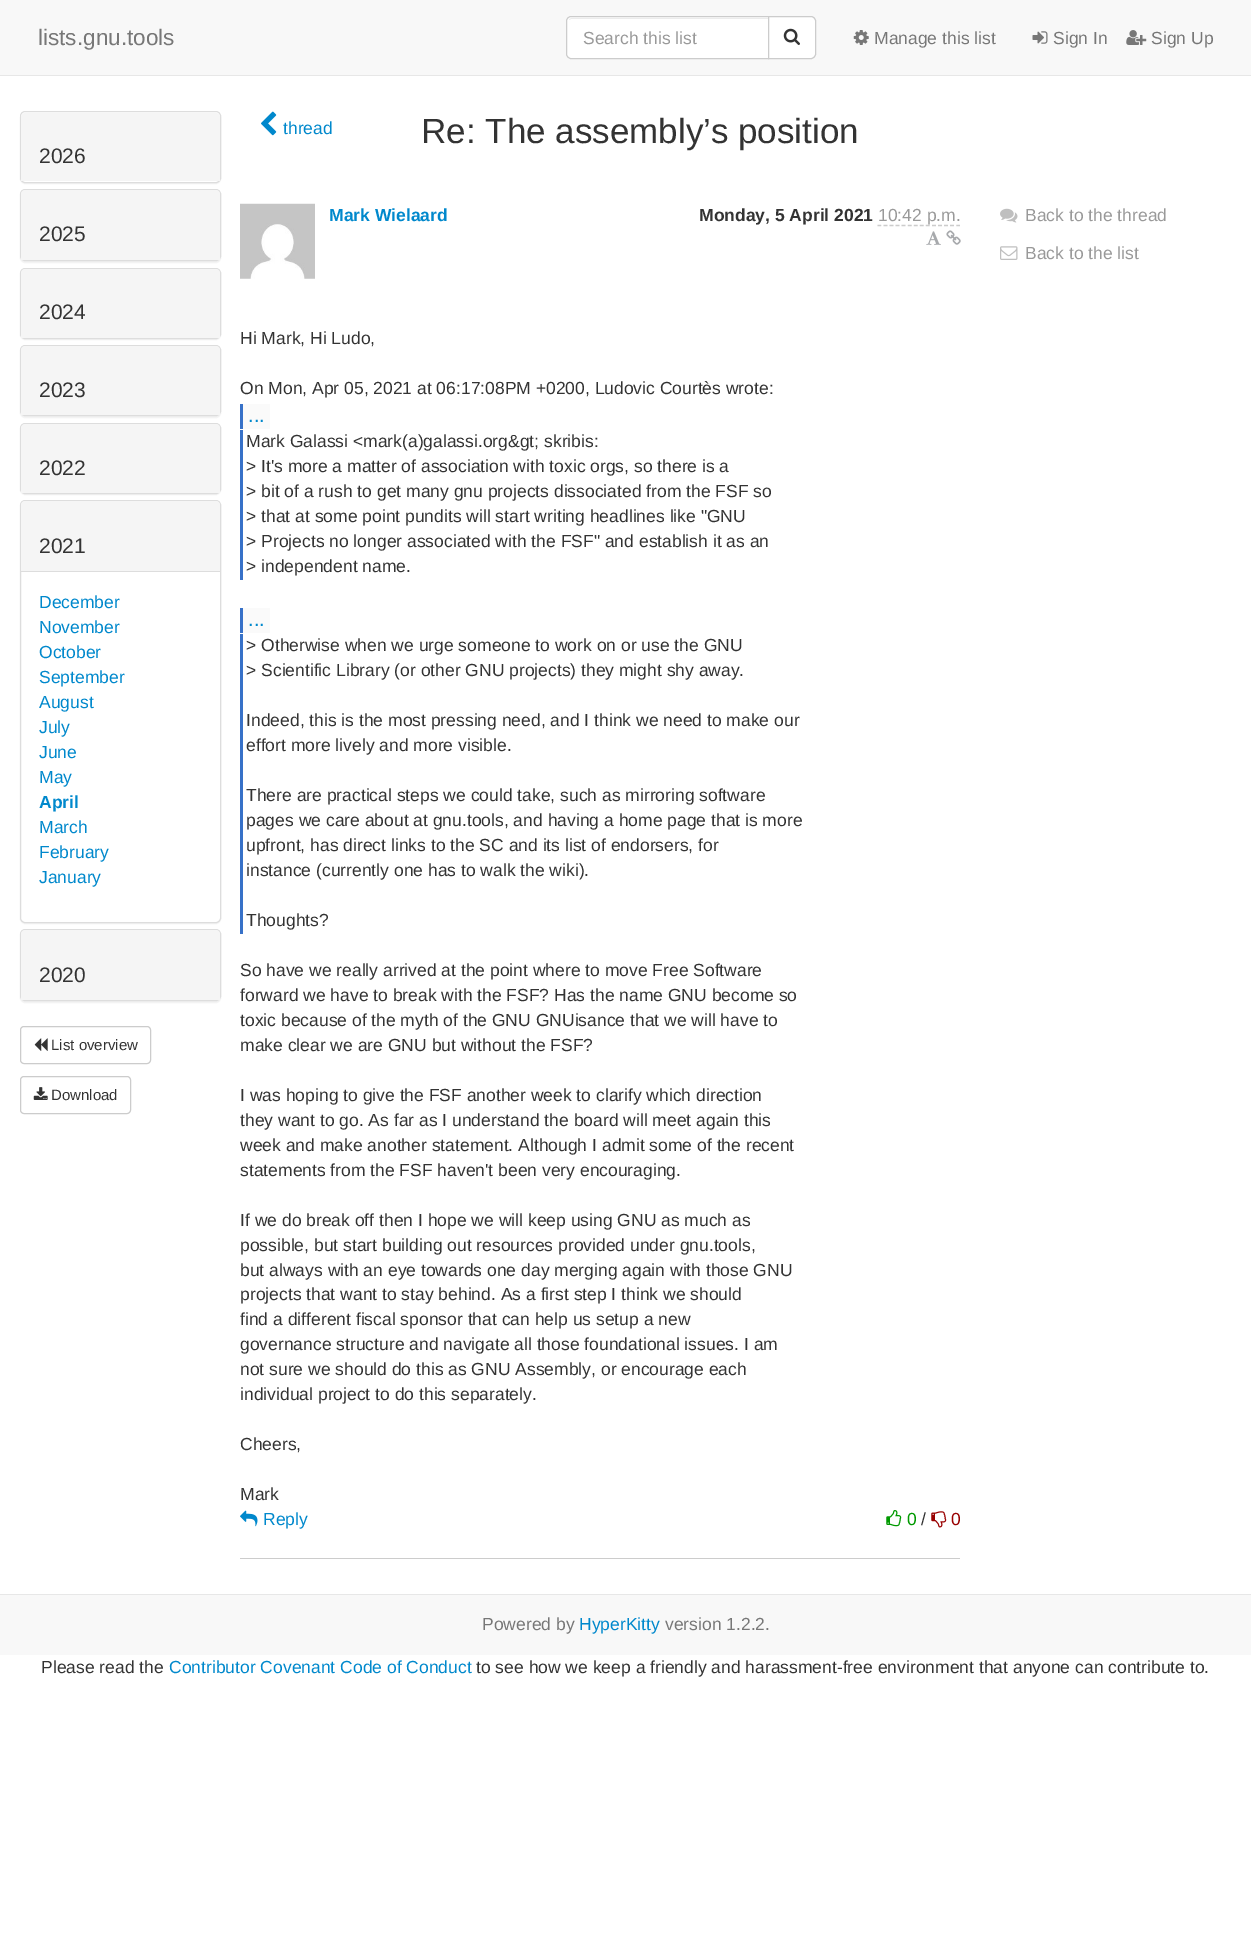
%!PS
<< /PageSize [1251 1947] /PageUsesTransparency true >> setpagedevice
/rgb { 3 { 255 div 3 1 roll } repeat setrgbcolor } def
/font { [ exch dup neg 0 0 3 -1 roll 0 0 ] selectfont } def
/text { moveto show } def
/alpha { dup .setfillconstantalpha .setstrokeconstantalpha } def
/roundrect { 5 dict begin { /r /h /w /y /x } { exch def } forall
  x r add y moveto x w add y 2 copy h add r arct x w add y h add x 1 index r arct
  x y h add x y r arct x y 2 copy exch w add exch r arct closepath end } def
/shadow { 12 dict begin { /a /b /q /h /w /y /x } { exch def } forall gsave /was 0 def
  9 -2 -9 { dup b mul 4 div /e exch def 1 sub .425 mul 2.718 exch exp 1 add a .99 .min exch div /now exch def
    1 1 now sub 1 was sub div sub alpha /was now def
    w h .min e 2 mul add 0 gt { x e sub y e sub w e 2 mul add h e 2 mul add
      q e add b .6 mul add w h .min 2 div e add .min 0 .max roundrect fill } if } for grestore end } def
/picture { 5 dict begin { /h /w /y /x /name } { exch def } forall
  gsave x y translate w h scale
  w h 8 [w 0 0 h 0 0] name (r) file false 3 colorimage grestore end } def
0 .pushpdf14devicefilter
0 1947 translate 1 -1 scale
4 setmiterlimit
255 255 255 rgb
0 0 1251 1947 rectfill
248 248 248 rgb
0 0 1251 75 rectfill
231 231 231 rgb
0 75 1251 1 rectfill
255 255 255 rgb
571 16 moveto 198 0 rlineto 0 43 rlineto -198 0 rlineto -3 0 -5 -2 -5 -5 rcurveto 0 -33 rlineto 0 -3 2 -5 5 -5 rcurveto closepath fill
236 236 236 rgb
571 19 moveto 197 0 rlineto 0 -1 rlineto -196 0 rlineto -1 0 -3 1 -3 2 rcurveto closepath fill
204 204 204 rgb
571 16.5 moveto 197.5 0 rlineto 0 42 rlineto -197.5 0 rlineto -2.5 0 -4.5 -2 -4.5 -4.5 rcurveto 0 -33 rlineto 0 -2.5 2 -4.5 4.5 -4.5 rcurveto closepath stroke
255 255 255 rgb
768.5 16.5 moveto 42.5 0 rlineto 2.5 0 4.5 2 4.5 4.5 rcurveto 0 33 rlineto 0 2.5 -2 4.5 -4.5 4.5 rcurveto -42.5 0 rlineto closepath gsave fill grestore
204 204 204 rgb
stroke
(img_01.rgb) 783 28 17 17 picture
(img_02.rgb) 853 30 16 15 picture
(img_03.rgb) 1032 31 16 13 picture
(img_04.rgb) 1126 30 21 15 picture
0 0 0 rgb
20 113 201 71 5 0.5 0.05 shadow
255 255 255 rgb
20.5 111.5 200 71 4.5 roundrect gsave fill grestore
221 221 221 rgb
stroke
245 245 245 rgb
25 113 moveto 191 0 rlineto 2 0 4 2 4 4 rcurveto 0 64 rlineto -199 0 rlineto 0 -64 rlineto 0 -2 2 -4 4 -4 rcurveto closepath fill
0 0 0 rgb
20 190 201 73 5 0.5 0.05 shadow
221 221 221 rgb
20.5 189.5 200 71 4.5 roundrect stroke
245 245 245 rgb
25 190 moveto 191 0 rlineto 2 0 4 2 4 4 rcurveto 0 66 rlineto -199 0 rlineto 0 -66 rlineto 0 -2 2 -4 4 -4 rcurveto closepath fill
0 0 0 rgb
20 269 201 71 5 0.5 0.05 shadow
221 221 221 rgb
20.5 268.5 200 70 4.5 roundrect stroke
245 245 245 rgb
25 269 moveto 191 0 rlineto 2 0 4 2 4 4 rcurveto 0 65 rlineto -199 0 rlineto 0 -65 rlineto 0 -2 2 -4 4 -4 rcurveto closepath fill
0 0 0 rgb
20 346 201 72 5 0.5 0.05 shadow
221 221 221 rgb
20.5 345.5 200 70 4.5 roundrect stroke
245 245 245 rgb
25 346 moveto 191 0 rlineto 2 0 4 2 4 4 rcurveto 0 65 rlineto -199 0 rlineto 0 -65 rlineto 0 -2 2 -4 4 -4 rcurveto closepath fill
0 0 0 rgb
20 424 201 71 5 0.5 0.05 shadow
221 221 221 rgb
20.5 423.5 200 70 4.5 roundrect stroke
245 245 245 rgb
25 424 moveto 191 0 rlineto 2 0 4 2 4 4 rcurveto 0 65 rlineto -199 0 rlineto 0 -65 rlineto 0 -2 2 -4 4 -4 rcurveto closepath fill
0 0 0 rgb
20 501 201 423 5 0.5 0.05 shadow
255 255 255 rgb
20.5 500.5 200 422 4.5 roundrect gsave fill grestore
221 221 221 rgb
stroke
245 245 245 rgb
25 501 moveto 191 0 rlineto 2 0 4 2 4 4 rcurveto 0 66 rlineto -199 0 rlineto 0 -66 rlineto 0 -2 2 -4 4 -4 rcurveto closepath fill
221 221 221 rgb
21 571 199 1 rectfill
0 0 0 rgb
20 930 201 73 5 0.5 0.05 shadow
221 221 221 rgb
20.5 929.5 200 71 4.5 roundrect stroke
245 245 245 rgb
25 930 moveto 191 0 rlineto 2 0 4 2 4 4 rcurveto 0 66 rlineto -199 0 rlineto 0 -66 rlineto 0 -2 2 -4 4 -4 rcurveto closepath fill
204 204 204 rgb
20.5 1026.5 130 37 3.5 roundrect stroke
(img_05.rgb) 34 1038 14 13 picture
20.5 1076.5 110 37 3.5 roundrect stroke
(img_06.rgb) 33 1087 15 13 picture
(img_07.rgb) 261 111 16 25 picture
(img_08.rgb) 240 203 75 76 picture
1.2 setlinewidth
[3.75 2.31] 0 setdash
877.5 225.5 moveto 82.5 0 rlineto stroke
(img_09.rgb) 926 231 15 14 picture
(img_10.rgb) 946 230 15 15 picture
250 250 250 rgb
243 404 27 25 rectfill
55 113 200 rgb
240 404 3 25 rectfill
240 430 3 150 rectfill
250 250 250 rgb
243 608 27 25 rectfill
55 113 200 rgb
240 608 3 25 rectfill
240 634 3 300 rectfill
204 204 204 rgb
240 1558 720 1 rectfill
(img_11.rgb) 240 1510 18 17 picture
(img_12.rgb) 886 1510 16 17 picture
(img_13.rgb) 931 1511 16 17 picture
(img_14.rgb) 1000 208 18 15 picture
(img_15.rgb) 1000 246 18 14 picture
248 248 248 rgb
0 1595 1251 60 rectfill
231 231 231 rgb
0 1594 1251 1 rectfill
/LiberationSans-Regular 22.5 font
119 119 119 rgb
(lists.gnu.tools) 38 45 text
/LiberationSans-Regular 17.5 font
153 153 153 rgb
(Search this list) 583 44 text
119 119 119 rgb
(Manage this list) 874 44 text
(Sign In) 1053 44 text
(Sign Up) 1151 44 text
/LiberationSans-Regular 21 font
51 51 51 rgb
(2026) 39 163 text
(2025) 39 241 text
(2024) 39 319 text
(2023) 39 397 text
(2022) 39 475 text
(2021) 39 553 text
/LiberationSans-Regular 17.5 font
0 136 204 rgb
(December) 39 608 text
(November) 39 633 text
(October) 39 658 text
(September) 39 683 text
(August) 39 708 text
(July) 39 733 text
(June) 39 758 text
(May) 39 783 text
/LiberationSans-Bold 17.5 font
(April) 39 808 text
/LiberationSans-Regular 17.5 font
(March) 39 833 text
(February) 39 858 text
(January) 39 883 text
/LiberationSans-Regular 21 font
51 51 51 rgb
(2020) 39 982 text
/LiberationSans-Regular 15 font
(List overview) 51 1050 text
(Download) 51 1100 text
/LiberationSans-Regular 17.5 font
0 136 204 rgb
(thread) 283 134 text
/LiberationSans-Regular 35 font
51 51 51 rgb
(Re: The assembly’s position) 421 143 text
/LiberationSans-Bold 17.5 font
0 136 204 rgb
(Mark Wielaard) 329 221 text
51 51 51 rgb
(Monday, 5 April 2021) 699 221 text
/LiberationSans-Regular 17.5 font
153 153 153 rgb
(10:42 p.m.) 878 221 text
51 51 51 rgb
(Hi Mark, Hi Ludo,) 240 344 text
(On Mon, Apr 05, 2021 at 06:17:08PM +0200, Ludovic Courtès wrote:) 240 394 text
/LiberationSans-Regular 20 font
0 136 204 rgb
(...) 248 422 text
/LiberationSans-Regular 17.5 font
51 51 51 rgb
(Mark Galassi <mark\(a\)galassi.org&gt; skribis:) 246 447 text
(> It's more a matter of association with toxic orgs, so there is a) 246 472 text
(> bit of a rush to get many gnu projects dissociated from the FSF so) 246 497 text
(> that at some point pundits will start writing headlines like "GNU) 246 522 text
(> Projects no longer associated with the FSF" and establish it as an) 246 547 text
(> independent name.) 246 572 text
/LiberationSans-Regular 20 font
0 136 204 rgb
(...) 248 626 text
/LiberationSans-Regular 17.5 font
51 51 51 rgb
(> Otherwise when we urge someone to work on or use the GNU) 246 651 text
(> Scientific Library \(or other GNU projects\) they might shy away.) 246 676 text
(Indeed, this is the most pressing need, and I think we need to make our) 246 726 text
(effort more lively and more visible.) 246 751 text
(There are practical steps we could take, such as mirroring software) 246 801 text
(pages we care about at gnu.tools, and having a home page that is more) 246 826 text
(upfront, has direct links to the SC and its list of endorsers, for) 246 851 text
(instance \(currently one has to walk the wiki\).) 246 876 text
(Thoughts?) 246 926 text
(So have we really arrived at the point where to move Free Software) 240 976 text
(forward we have to break with the FSF? Has the name GNU become so) 240 1001 text
(toxic because of the myth of the GNU GNUisance that we will have to) 240 1026 text
(make clear we are GNU but without the FSF?) 240 1051 text
(I was hoping to give the FSF another week to clarify which direction) 240 1101 text
(they want to go. As far as I understand the board will meet again this) 240 1126 text
(week and make another statement. Although I admit some of the recent) 240 1151 text
(statements from the FSF haven't been very encouraging.) 240 1176 text
(If we do break off then I hope we will keep using GNU as much as) 240 1226 text
(possible, but start building out resources provided under gnu.tools,) 240 1251 text
(but always with an eye towards one day merging again with those GNU) 240 1276 text
(projects that want to stay behind. As a first step I think we should) 240 1300 text
(find a different fiscal sponsor that can help us setup a new) 240 1325 text
(governance structure and navigate all those foundational issues. I am) 240 1350 text
(not sure we should do this as GNU Assembly, or encourage each) 240 1375 text
(individual project to do this separately.) 240 1400 text
(Cheers,) 240 1450 text
(Mark) 240 1500 text
0 136 204 rgb
(Reply) 263 1525 text
0 153 0 rgb
(0) 907 1525 text
51 51 51 rgb
(/) 921 1525 text
153 0 0 rgb
(0) 951 1525 text
153 153 153 rgb
(Back to the thread) 1025 221 text
(Back to the list) 1025 259 text
119 119 119 rgb
(Powered by) 482 1630 text
0 136 204 rgb
(HyperKitty) 579 1630 text
119 119 119 rgb
(version 1.2.2.) 665 1630 text
51 51 51 rgb
(Please read the) 41 1673 text
0 136 204 rgb
(Contributor Covenant Code of Conduct) 169 1673 text
51 51 51 rgb
(to see how we keep a friendly and harassment-free environment that anyone can contribute to.) 476 1673 text
.poppdf14devicefilter showpage
